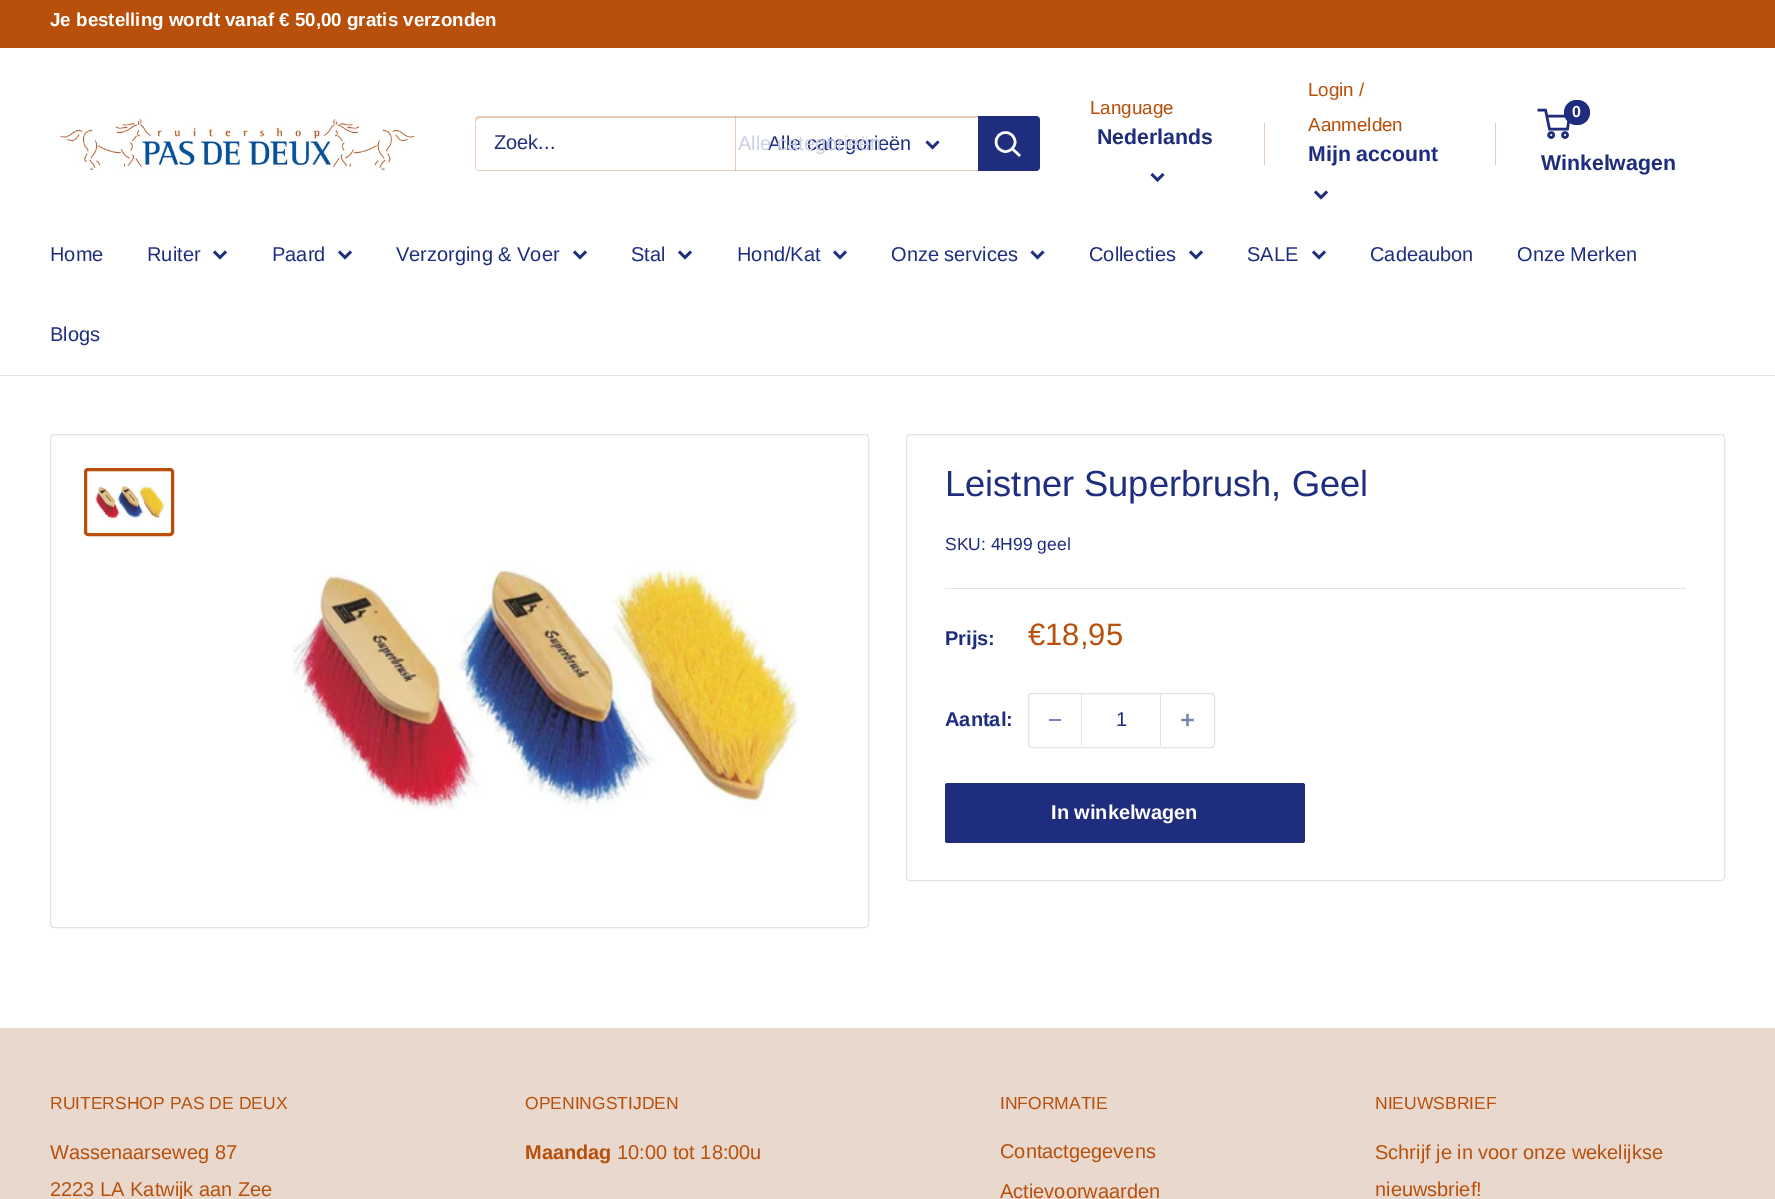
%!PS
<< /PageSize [1775 1199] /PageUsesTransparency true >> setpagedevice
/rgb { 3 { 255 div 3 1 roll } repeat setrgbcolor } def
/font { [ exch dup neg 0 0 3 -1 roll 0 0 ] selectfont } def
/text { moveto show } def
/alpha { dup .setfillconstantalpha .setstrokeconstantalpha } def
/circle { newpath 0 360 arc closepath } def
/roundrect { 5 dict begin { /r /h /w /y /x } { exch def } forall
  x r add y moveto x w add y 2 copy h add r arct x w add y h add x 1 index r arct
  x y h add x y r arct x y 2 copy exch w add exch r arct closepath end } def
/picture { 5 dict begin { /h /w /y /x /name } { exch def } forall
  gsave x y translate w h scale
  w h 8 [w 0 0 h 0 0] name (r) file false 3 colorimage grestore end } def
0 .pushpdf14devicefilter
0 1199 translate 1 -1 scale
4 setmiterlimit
255 255 255 rgb
0 0 1775 1199 rectfill
184 80 11 rgb
0 0 1775 48 rectfill
(img_01.rgb) 60 118 355 55 picture
234 203 182 rgb
476 170 moveto 1 0 2 1 3 1 rcurveto 557 0 rlineto 2 0 4 -2 4 -4 rcurveto 0 -47 rlineto 0 -1 -1 -3 -2 -3 rcurveto 1 2 rlineto 0 47 rlineto 0 2 -2 4 -4 4 rcurveto -557 0 rlineto closepath fill
0.3 alpha
184 80 11 rgb
480 118 moveto 560 0 rlineto -1 -1 -2 -2 -4 -2 rcurveto -557 0 rlineto -2 0 -4 2 -4 4 rcurveto 0 47 rlineto 0 1 0 2 1 3 rcurveto 0 -41 rlineto 0 -4 -2 -11 4 -11 rcurveto closepath fill
735 116 1 55 rectfill
1 alpha
30 45 125 rgb
2.5 setlinewidth
2 setlinecap
937.5 142.5 moveto -5 5 rlineto -5 -5 rlineto stroke
978 116 moveto 58 0 rlineto 2 0 4 2 4 4 rcurveto 0 47 rlineto 0 2 -2 4 -4 4 rcurveto -58 0 rlineto closepath fill
255 255 255 rgb
1019 155 moveto -6.5 -6 rlineto stroke
0 setlinecap
1005.5 142 9.5 circle stroke
30 45 125 rgb
2 setlinecap
1162.5 175 moveto -5 5 rlineto -5 -5 rlineto stroke
234 203 182 rgb
1264 123 1 42 rectfill
30 45 125 rgb
1326 192.5 moveto -5 5 rlineto -5 -5 rlineto stroke
234 203 182 rgb
1495 123 1 42 rectfill
30 45 125 rgb
0 setlinecap
1551.2 135 2.5 circle stroke
1565 135 2.5 circle stroke
1546.5 116 moveto 23 0 rlineto -2 13 rlineto -18 0 rlineto -4 -19 rlineto -8 0 rlineto stroke
1564 100 26 25 12.5 roundrect fill
225 227 228 rgb
0 375 1775 1 rectfill
30 45 125 rgb
2 setlinecap
225 252.5 moveto -5 5 rlineto -5 -5 rlineto stroke
350 252.5 moveto -5 5 rlineto -5 -5 rlineto stroke
585 252.5 moveto -5 5 rlineto -5 -5 rlineto stroke
690 252.5 moveto -5 5 rlineto -5 -5 rlineto stroke
845 252.5 moveto -5 5 rlineto -5 -5 rlineto stroke
1042.5 252.5 moveto -5 5 rlineto -5 -5 rlineto stroke
1201 252.5 moveto -5 5 rlineto -5 -5 rlineto stroke
1324 252.5 moveto -5 5 rlineto -5 -5 rlineto stroke
225 227 228 rgb
1 setlinewidth
0 setlinecap
50.5 434.5 818 493 3.5 roundrect stroke
184 80 11 rgb
3 setlinewidth
85.5 469.5 87 65 2.5 roundrect stroke
(img_02.rgb) 94 483 73 39 picture
(img_03.rgb) 292 565 507 246 picture
225 227 228 rgb
1 setlinewidth
906.5 434.5 818 446 3.5 roundrect stroke
945 588 741 1 rectfill
1028.5 693.5 186 54 3.5 roundrect stroke
120 129 177 rgb
1049 719 12 2 rectfill
243 244 244 rgb
1083 694 77 1 rectfill
225 227 228 rgb
1160 694 1 52 rectfill
1081 694 1 52 rectfill
(img_04.rgb) 1181 713 13 14 picture
30 45 125 rgb
945 783 360 60 2.5 roundrect fill
233 216 205 rgb
0 1028 1775 171 rectfill
/LiberationSans-Bold 18.75 font
255 255 255 rgb
(Je bestelling wordt vanaf € 50,00 gratis verzonden) 50 26 text
/LiberationSans-Regular 20 font
30 45 125 rgb
(Zoek...) 494 149 text
(Alle categorieën) 768 150 text
204 208 226 rgb
(Alle categorieën) 738 150 text
/LiberationSans-Regular 18.75 font
184 80 11 rgb
(Language) 1090 114 text
/LiberationSans-Bold 21.25 font
30 45 125 rgb
(Nederlands) 1097 144 text
/LiberationSans-Regular 18.75 font
184 80 11 rgb
(Login /) 1308 96 text
(Aanmelden) 1308 131 text
/LiberationSans-Bold 21.25 font
30 45 125 rgb
(Mijn account) 1308 161 text
/LiberationSans-Bold 16 font
255 255 255 rgb
(0) 1572 117 text
/LiberationSans-Bold 21.25 font
30 45 125 rgb
(Winkelwagen) 1541 170 text
/LiberationSans-Regular 20 font
(Home) 50 261 text
(Ruiter) 147 261 text
(Paard) 272 261 text
(Verzorging & Voer) 396 261 text
(Stal) 631 261 text
(Hond/Kat) 737 261 text
(Onze services) 891 261 text
(Collecties) 1089 261 text
(SALE) 1247 261 text
(Cadeaubon) 1370 261 text
(Onze Merken) 1517 261 text
(Blogs) 50 341 text
/LiberationSans-Regular 36.25 font
(Leistner Superbrush, Geel) 945 496 text
/LiberationSans-Regular 17.5 font
(SKU: 4H99 geel) 945 550 text
/LiberationSans-Bold 20 font
(Prijs:) 945 645 text
/LiberationSans-Regular 31 font
184 80 11 rgb
(€18,95) 1028 645 text
/LiberationSans-Bold 20 font
30 45 125 rgb
(Aantal:) 945 726 text
/LiberationSans-Regular 20 font
(1) 1116 726 text
/LiberationSans-Bold 20 font
255 255 255 rgb
(In winkelwagen) 1051 819 text
/LiberationSans-Regular 17.5 font
184 80 11 rgb
(RUITERSHOP PAS DE DEUX) 50 1109 text
/LiberationSans-Regular 20 font
(Wassenaarseweg 87) 50 1159 text
(2223 LA Katwijk aan Zee) 50 1196 text
/LiberationSans-Regular 17.5 font
(OPENINGSTIJDEN) 525 1109 text
/LiberationSans-Bold 20 font
(Maandag) 525 1159 text
/LiberationSans-Regular 20 font
(10:00 tot 18:00u) 617 1159 text
/LiberationSans-Regular 17.5 font
(INFORMATIE) 1000 1109 text
/LiberationSans-Regular 20 font
(Contactgegevens) 1000 1158 text
(Actievoorwaarden) 1000 1198 text
/LiberationSans-Regular 17.5 font
(NIEUWSBRIEF) 1375 1109 text
/LiberationSans-Regular 20 font
(Schrijf je in voor onze wekelijkse) 1375 1159 text
(nieuwsbrief!) 1375 1196 text
.poppdf14devicefilter showpage
